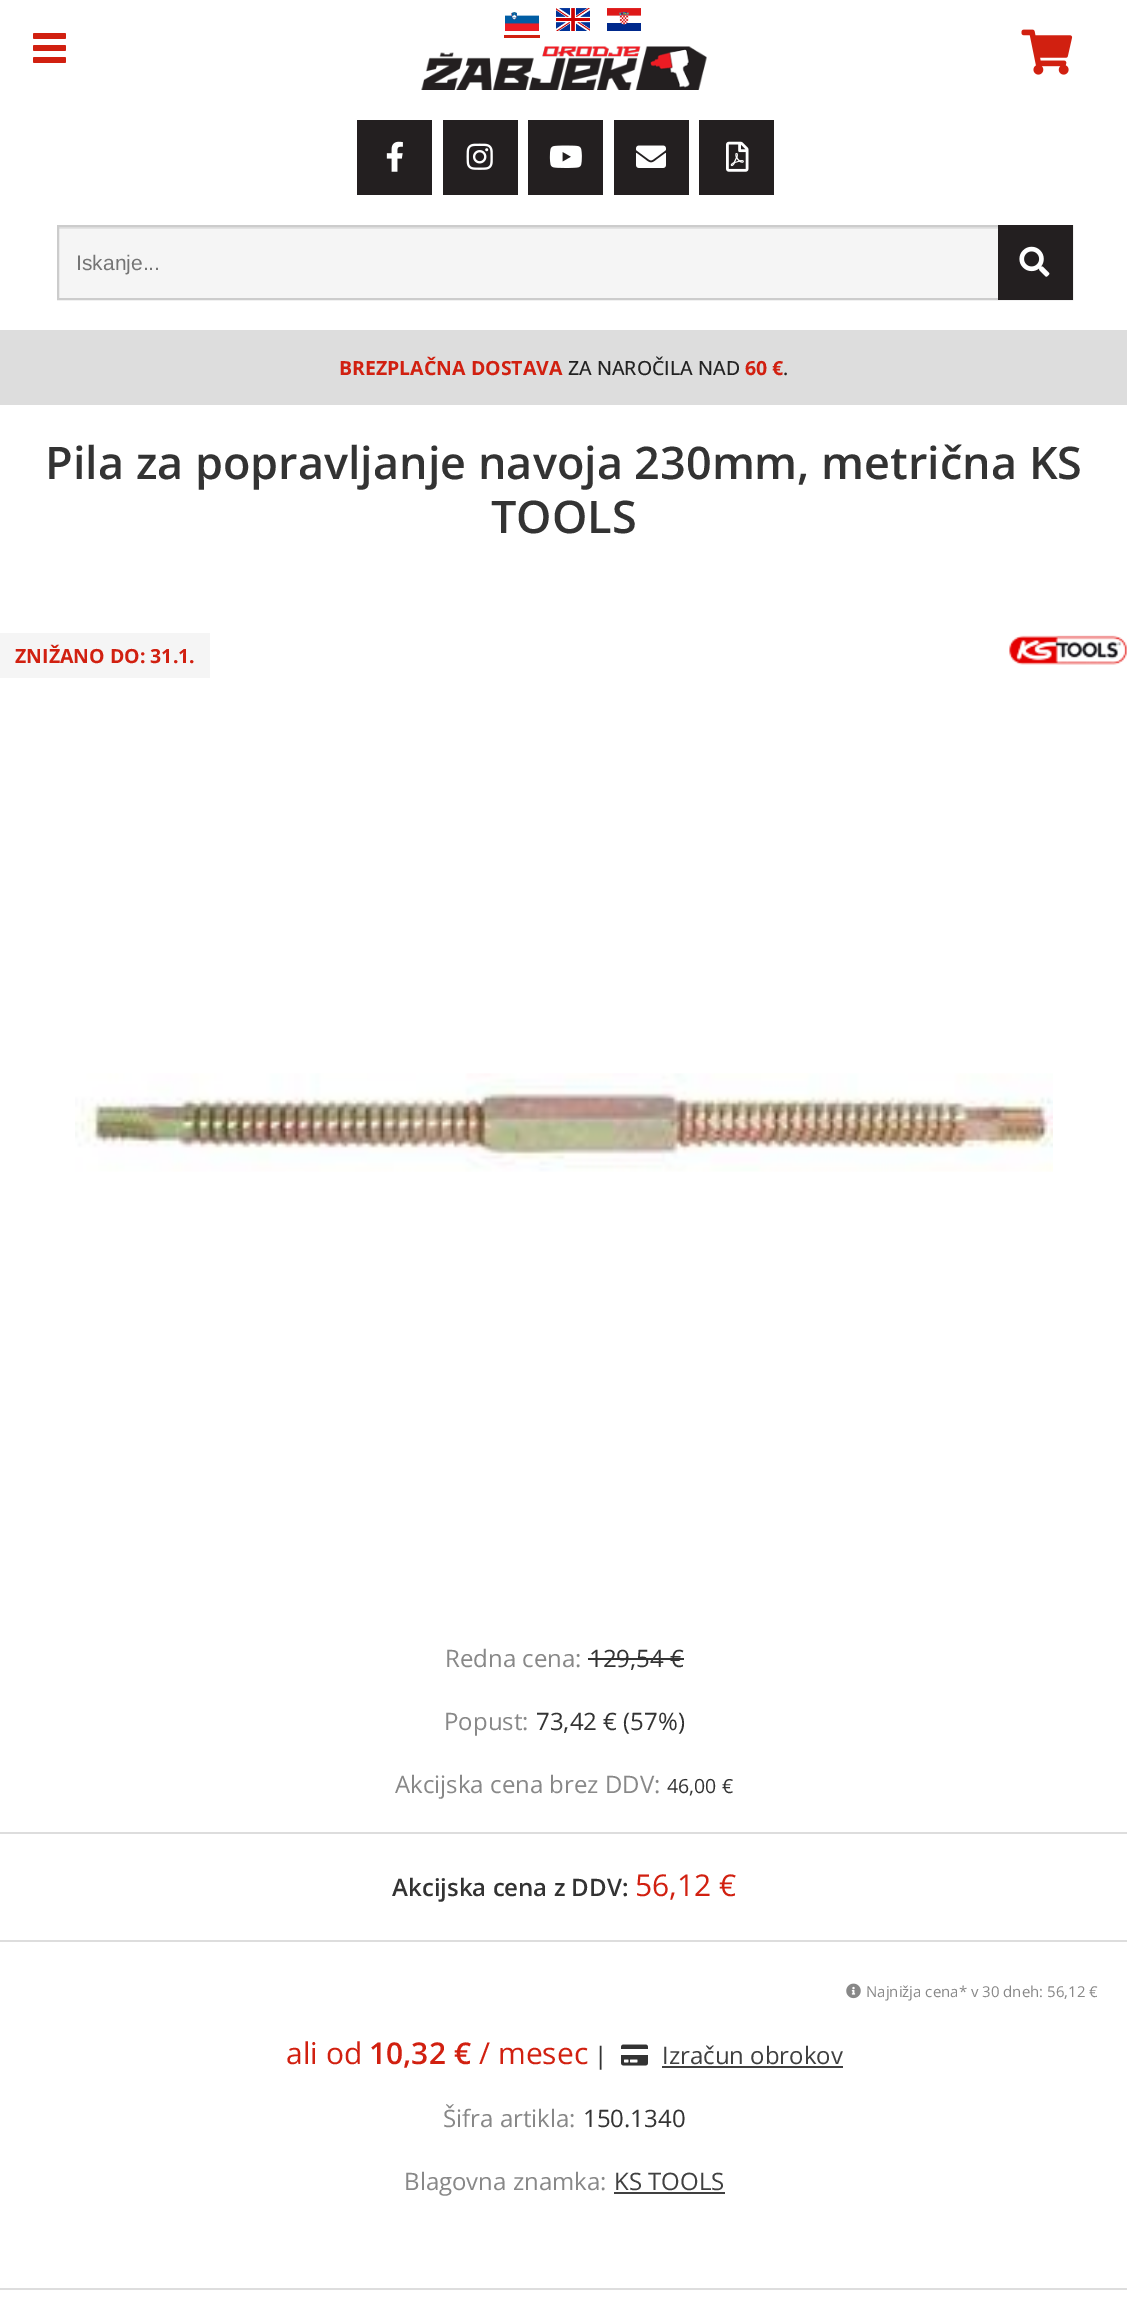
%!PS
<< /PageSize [1127 2302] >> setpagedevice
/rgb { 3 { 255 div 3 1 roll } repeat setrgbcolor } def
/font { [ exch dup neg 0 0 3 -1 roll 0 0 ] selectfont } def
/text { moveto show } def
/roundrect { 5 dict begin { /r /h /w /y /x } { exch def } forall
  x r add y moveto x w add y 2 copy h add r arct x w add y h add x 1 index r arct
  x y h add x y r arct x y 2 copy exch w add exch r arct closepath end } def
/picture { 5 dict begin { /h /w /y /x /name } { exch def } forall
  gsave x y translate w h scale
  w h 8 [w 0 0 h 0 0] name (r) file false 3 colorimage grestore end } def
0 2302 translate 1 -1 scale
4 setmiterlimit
255 255 255 rgb
0 0 1127 2302 rectfill
(img_01.rgb) 505 12 34 19 picture
209 32 16 rgb
504 35 36 3 rectfill
(img_02.rgb) 556 8 34 23 picture
(img_03.rgb) 607 8 34 23 picture
(img_04.rgb) 1021 29 52 46 picture
33 33 33 6 1.5 roundrect fill
33 45 33 6 1.5 roundrect fill
33 57 33 6 1.5 roundrect fill
(img_05.rgb) 421 46 286 44 picture
35 31 32 rgb
357 120 75 75 rectfill
(img_06.rgb) 386 141 17 31 picture
443 120 75 75 rectfill
(img_07.rgb) 466 143 27 27 picture
528 120 75 75 rectfill
(img_08.rgb) 549 145 33 23 picture
614 120 75 75 rectfill
(img_09.rgb) 636 145 30 23 picture
699 120 75 75 rectfill
(img_10.rgb) 726 141 23 31 picture
245 245 245 rgb
59 229 939 69 rectfill
227 227 227 rgb
59 227 939 2 rectfill
204 204 204 rgb
2 setlinewidth
58 226 1014 73 rectstroke
35 31 32 rgb
998 225 75 75 rectfill
(img_11.rgb) 1019 246 31 31 picture
221 221 221 rgb
0 330 1127 75 rectfill
245 245 245 rgb
0 633 210 45 rectfill
(img_12.rgb) 1009 635 118 30 picture
(img_13.rgb) 75 1073 978 99 picture
51 51 51 rgb
588 1658 96 2 rectfill
221 221 221 rgb
0 1832 1127 2 rectfill
0 1940 1127 2 rectfill
(img_14.rgb) 846 1983 15 16 picture
(img_15.rgb) 621 2044 27 22 picture
64 64 64 rgb
662 2066 181 2 rectfill
614 2192 111 2 rectfill
221 221 221 rgb
0 2288 1127 2 rectfill
/LiberationSans-Regular 21 font
117 117 117 rgb
(Iskanje...) 76 270 text
/OpenSans-Bold 19.5 font
209 32 16 rgb
(BREZPLAČNA DOSTAVA) 339 375 text
/OpenSans-Medium 19.5 font
34 34 34 rgb
(ZA NAROČILA NAD) 568 375 text
/OpenSans-Bold 19.5 font
209 32 16 rgb
(60 €) 745 375 text
/OpenSans-Medium 19.5 font
34 34 34 rgb
(.) 783 375 text
/OpenSans-SemiBold 45 font
51 51 51 rgb
(Pila za popravljanje navoja 230mm, metrična KS) 45 479 text
(TOOLS) 491 533 text
/OpenSans-Bold 19.5 font
209 32 16 rgb
(ZNIŽANO DO: 31.1.) 15 663 text
/OpenSans-Regular 24 font
136 136 136 rgb
(Redna cena:) 445 1667 text
51 51 51 rgb
(129,54 €) 589 1667 text
136 136 136 rgb
(Popust:) 444 1730 text
51 51 51 rgb
(73,42 € \(57%\)) 536 1730 text
136 136 136 rgb
(Akcijska cena brez DDV:) 395 1793 text
/OpenSans-Regular 19.5 font
51 51 51 rgb
(46,00 €) 667 1793 text
/OpenSans-SemiBold 24 font
(Akcijska cena z DDV:) 392 1896 text
/OpenSans-Regular 30 font
209 32 16 rgb
(56,12 €) 635 1896 text
/OpenSans-Regular 15 font
136 136 136 rgb
(Najnižja cena* v 30 dneh: 56,12 €) 866 1997 text
/OpenSans-Regular 30 font
209 32 16 rgb
(ali od) 286 2064 text
/OpenSans-SemiBold 30 font
(10,32 €) 369 2064 text
/OpenSans-Regular 30 font
(/ mesec) 479 2064 text
/OpenSans-Regular 24 font
51 51 51 rgb
(|) 594 2064 text
64 64 64 rgb
(Izračun obrokov) 662 2064 text
136 136 136 rgb
(Šifra artikla:) 443 2127 text
51 51 51 rgb
(150.1340) 583 2127 text
136 136 136 rgb
(Blagovna znamka:) 404 2190 text
64 64 64 rgb
(KS TOOLS) 614 2190 text
showpage
